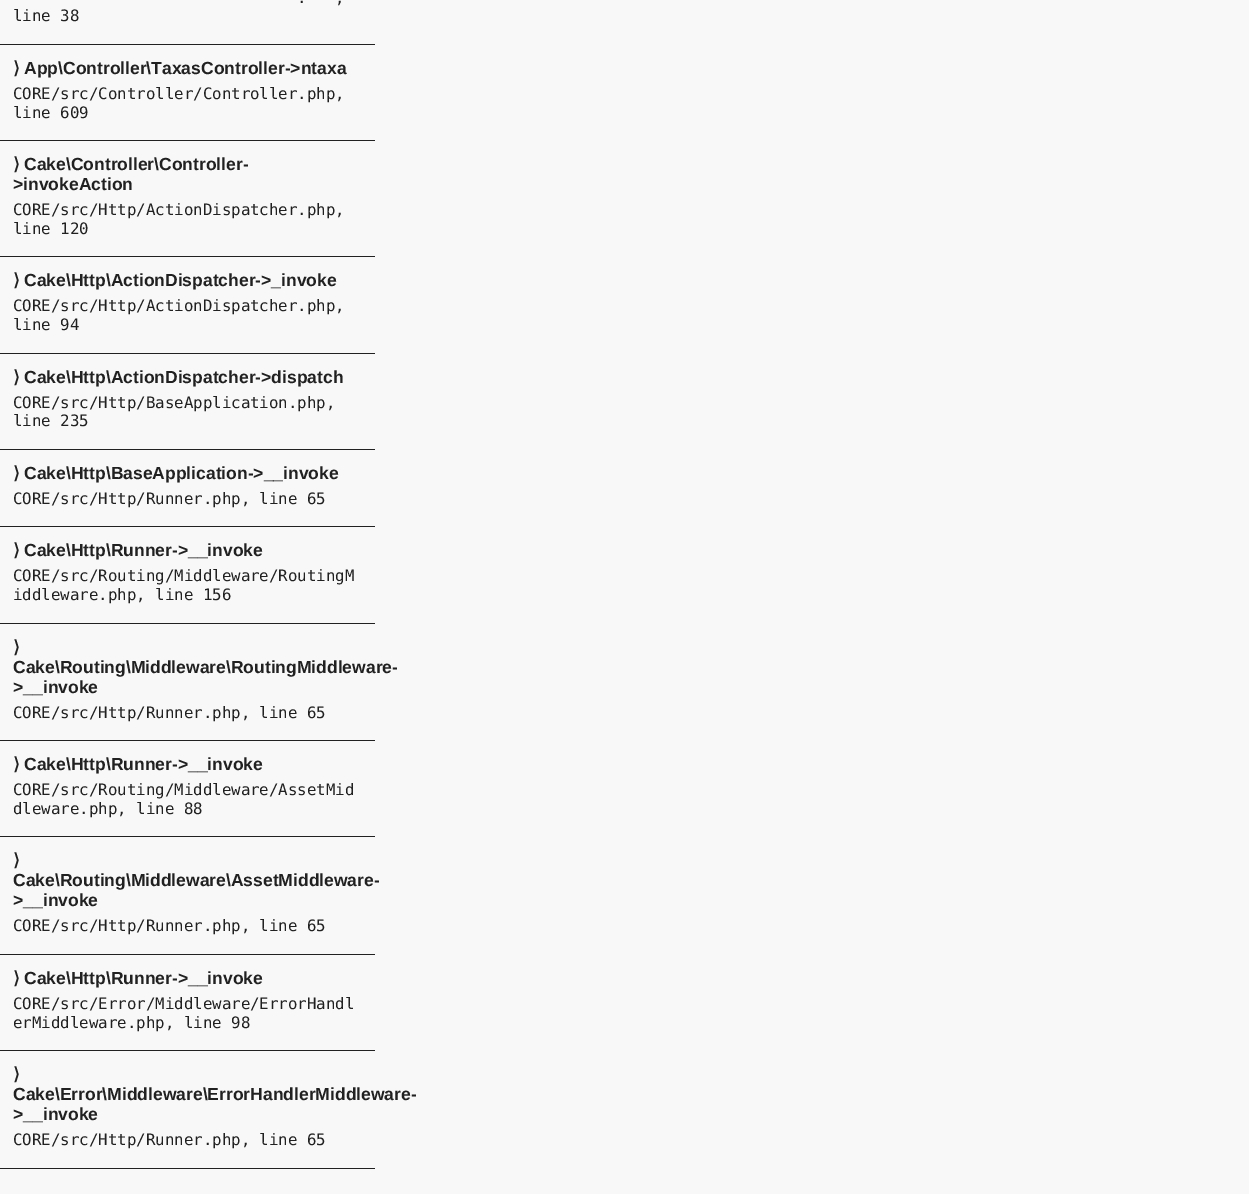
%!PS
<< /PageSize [1249 1194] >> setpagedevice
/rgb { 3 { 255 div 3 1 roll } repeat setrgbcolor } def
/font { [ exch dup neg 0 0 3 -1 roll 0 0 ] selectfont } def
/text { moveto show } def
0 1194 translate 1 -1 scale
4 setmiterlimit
248 248 248 rgb
0 0 1249 1194 rectfill
33 33 33 rgb
0 44 375 1 rectfill
0 140 375 1 rectfill
0 256 375 1 rectfill
0 353 375 1 rectfill
0 449 375 1 rectfill
0 526 375 1 rectfill
0 623 375 1 rectfill
0 740 375 1 rectfill
0 836 375 1 rectfill
0 954 375 1 rectfill
0 1050 375 1 rectfill
0 1168 375 1 rectfill
/DejaVuSansMono-Regular 15.75 font
(.) 297 3 text
(,) 335 3 text
(line 38) 13 21 text
/DejaVuSans-Bold 17.5 font
(⟩) 13 74 text
/LiberationSans-Bold 17.5 font
(App\\Controller\\TaxasController->ntaxa) 24 74 text
/DejaVuSansMono-Regular 15.75 font
(CORE/src/Controller/Controller.php,) 13 99 text
(line 609) 13 118 text
/DejaVuSans-Bold 17.5 font
(⟩) 13 170 text
/LiberationSans-Bold 17.5 font
(Cake\\Controller\\Controller-) 24 170 text
(>invokeAction) 13 190 text
/DejaVuSansMono-Regular 15.75 font
(CORE/src/Http/ActionDispatcher.php,) 13 215 text
(line 120) 13 234 text
/DejaVuSans-Bold 17.5 font
(⟩) 13 286 text
/LiberationSans-Bold 17.5 font
(Cake\\Http\\ActionDispatcher->_invoke) 24 286 text
/DejaVuSansMono-Regular 15.75 font
(CORE/src/Http/ActionDispatcher.php,) 13 311 text
(line 94) 13 330 text
/DejaVuSans-Bold 17.5 font
(⟩) 13 383 text
/LiberationSans-Bold 17.5 font
(Cake\\Http\\ActionDispatcher->dispatch) 24 383 text
/DejaVuSansMono-Regular 15.75 font
(CORE/src/Http/BaseApplication.php,) 13 408 text
(line 235) 13 426 text
/DejaVuSans-Bold 17.5 font
(⟩) 13 479 text
/LiberationSans-Bold 17.5 font
(Cake\\Http\\BaseApplication->__invoke) 24 479 text
/DejaVuSansMono-Regular 15.75 font
(CORE/src/Http/Runner.php, line 65) 13 504 text
/DejaVuSans-Bold 17.5 font
(⟩) 13 556 text
/LiberationSans-Bold 17.5 font
(Cake\\Http\\Runner->__invoke) 24 556 text
/DejaVuSansMono-Regular 15.75 font
(CORE/src/Routing/Middleware/RoutingM) 13 581 text
(iddleware.php, line 156) 13 600 text
/DejaVuSans-Bold 17.5 font
(⟩) 13 653 text
/LiberationSans-Bold 17.5 font
(Cake\\Routing\\Middleware\\RoutingMiddleware-) 13 673 text
(>__invoke) 13 693 text
/DejaVuSansMono-Regular 15.75 font
(CORE/src/Http/Runner.php, line 65) 13 718 text
/DejaVuSans-Bold 17.5 font
(⟩) 13 770 text
/LiberationSans-Bold 17.5 font
(Cake\\Http\\Runner->__invoke) 24 770 text
/DejaVuSansMono-Regular 15.75 font
(CORE/src/Routing/Middleware/AssetMid) 13 795 text
(dleware.php, line 88) 13 814 text
/DejaVuSans-Bold 17.5 font
(⟩) 13 866 text
/LiberationSans-Bold 17.5 font
(Cake\\Routing\\Middleware\\AssetMiddleware-) 13 886 text
(>__invoke) 13 906 text
/DejaVuSansMono-Regular 15.75 font
(CORE/src/Http/Runner.php, line 65) 13 931 text
/DejaVuSans-Bold 17.5 font
(⟩) 13 984 text
/LiberationSans-Bold 17.5 font
(Cake\\Http\\Runner->__invoke) 24 984 text
/DejaVuSansMono-Regular 15.75 font
(CORE/src/Error/Middleware/ErrorHandl) 13 1009 text
(erMiddleware.php, line 98) 13 1028 text
/DejaVuSans-Bold 17.5 font
(⟩) 13 1080 text
/LiberationSans-Bold 17.5 font
(Cake\\Error\\Middleware\\ErrorHandlerMiddleware-) 13 1100 text
(>__invoke) 13 1120 text
/DejaVuSansMono-Regular 15.75 font
(CORE/src/Http/Runner.php, line 65) 13 1145 text
showpage
